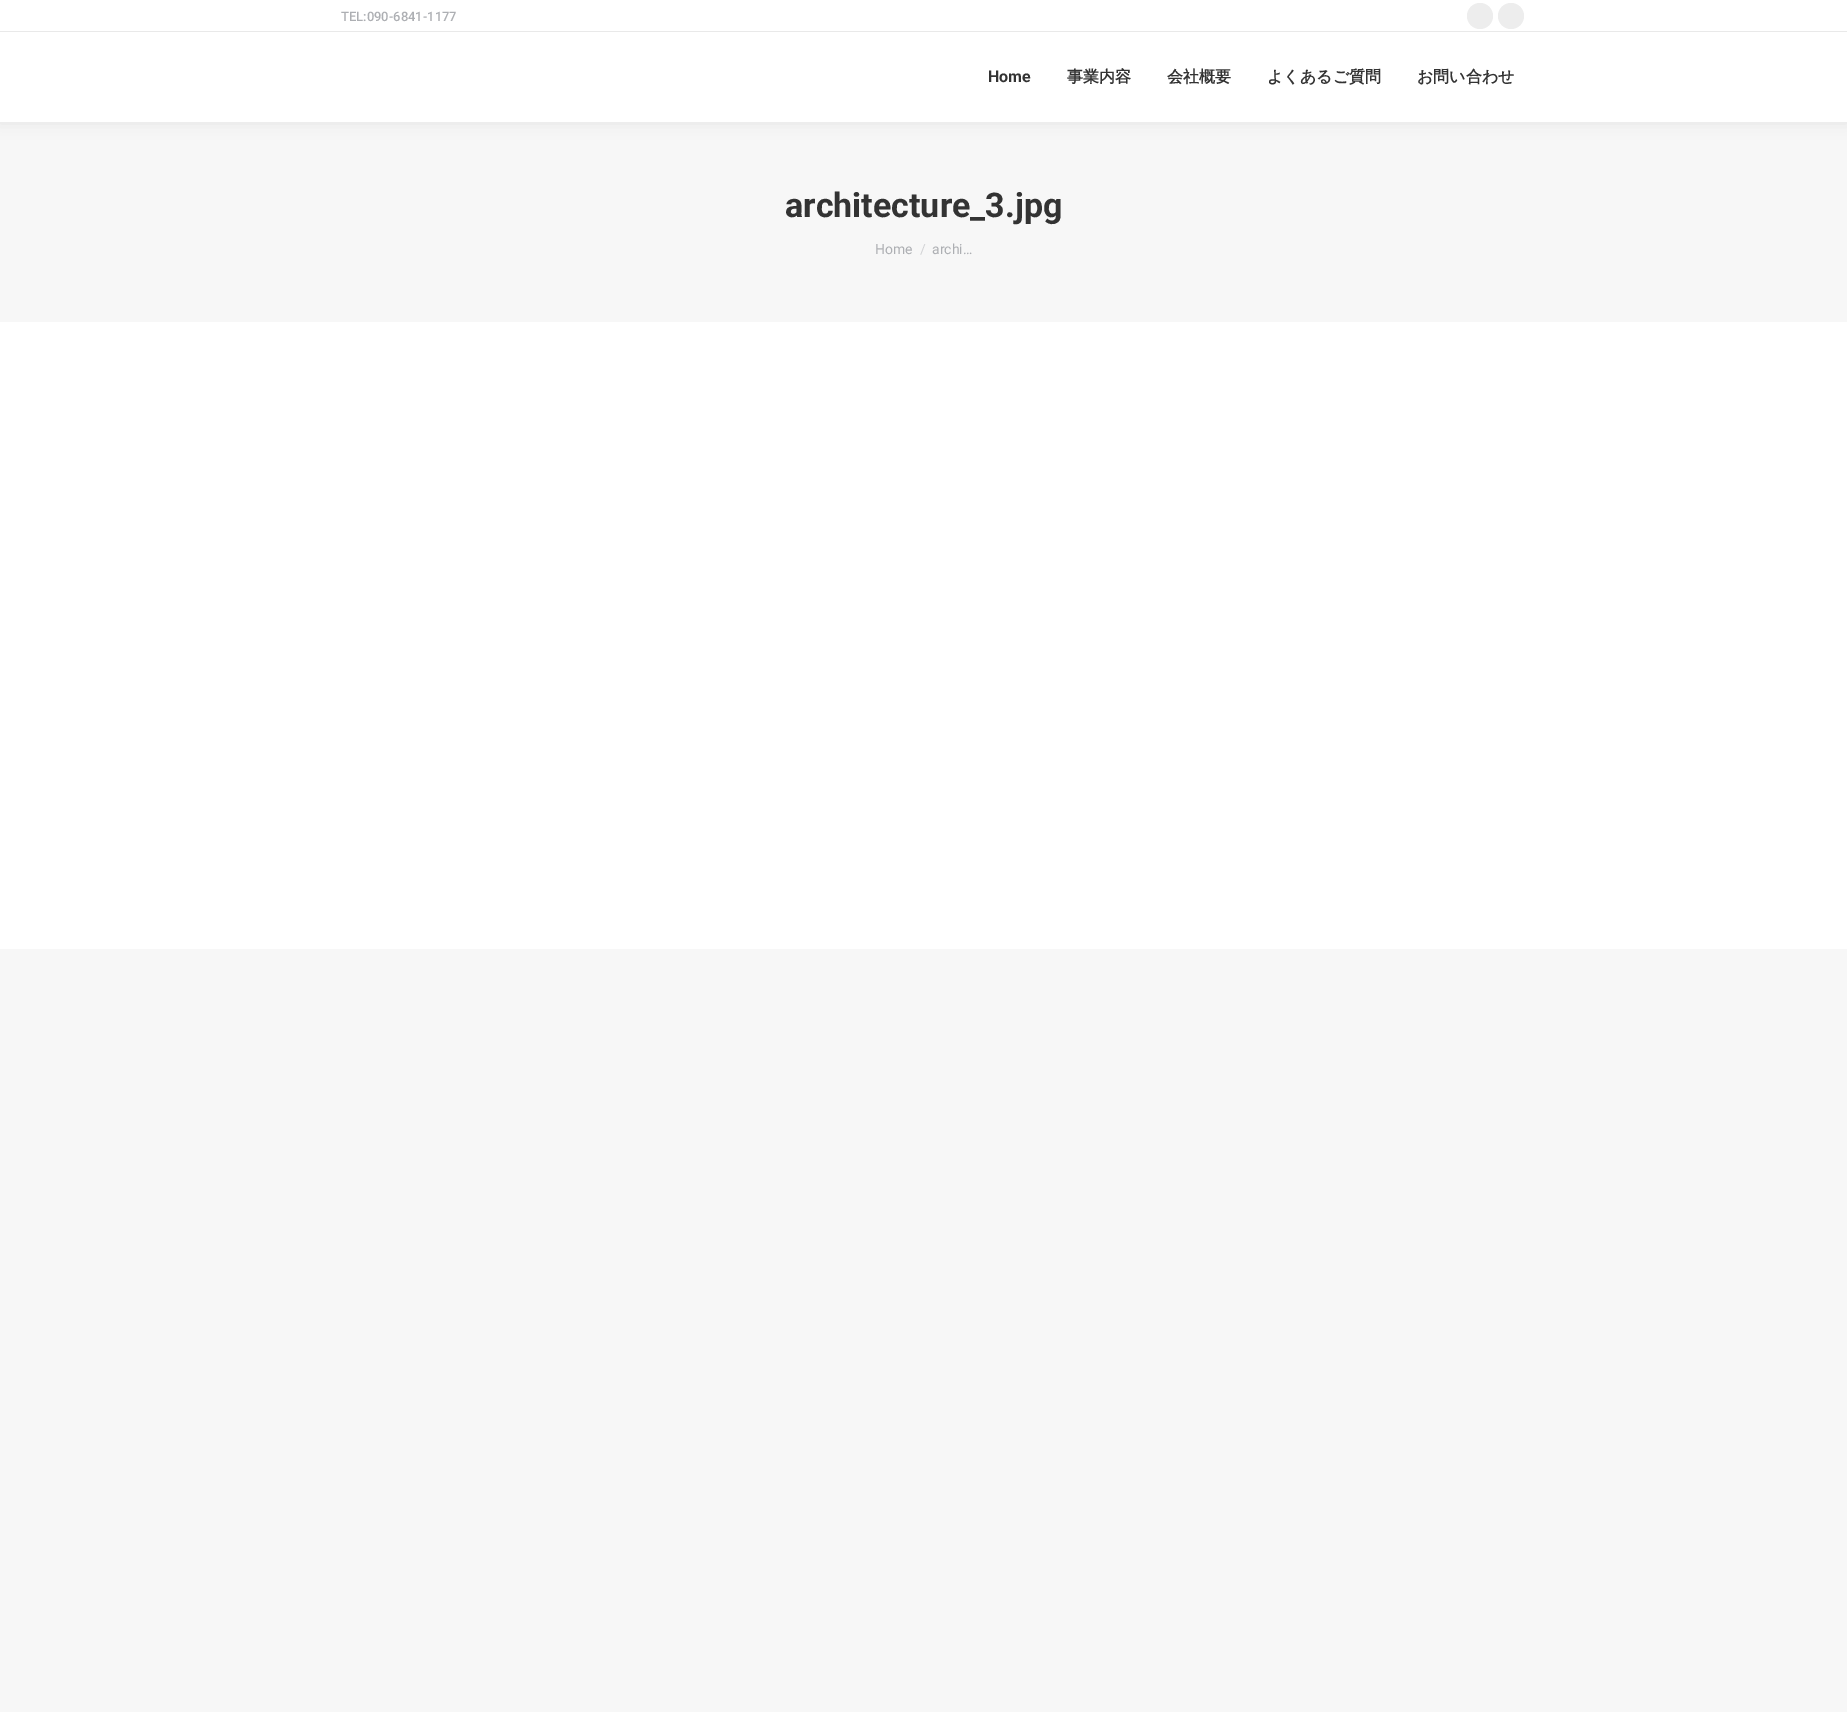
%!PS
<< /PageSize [1847 1712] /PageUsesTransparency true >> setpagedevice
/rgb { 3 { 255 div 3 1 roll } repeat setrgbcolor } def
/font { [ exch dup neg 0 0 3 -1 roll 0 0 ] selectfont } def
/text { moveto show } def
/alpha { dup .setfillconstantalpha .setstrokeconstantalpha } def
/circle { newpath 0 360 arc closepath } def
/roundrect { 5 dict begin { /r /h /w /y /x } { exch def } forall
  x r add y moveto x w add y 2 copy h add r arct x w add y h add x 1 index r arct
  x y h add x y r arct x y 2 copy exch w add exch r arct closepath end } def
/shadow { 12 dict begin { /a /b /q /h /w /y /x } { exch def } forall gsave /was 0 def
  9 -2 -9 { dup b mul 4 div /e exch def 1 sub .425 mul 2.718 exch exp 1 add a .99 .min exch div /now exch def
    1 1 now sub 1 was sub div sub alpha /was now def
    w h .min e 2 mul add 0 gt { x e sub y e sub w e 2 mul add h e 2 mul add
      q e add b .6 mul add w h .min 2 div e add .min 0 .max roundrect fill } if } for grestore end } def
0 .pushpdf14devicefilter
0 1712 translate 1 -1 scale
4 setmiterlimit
247 247 247 rgb
0 0 1847 1712 rectfill
0 0 0 rgb
-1 -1 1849 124 0 7.5 0.07 shadow
255 255 255 rgb
0 0 1847 122 rectfill
237 237 237 rgb
1480 16 13 circle fill
1511 16 13 circle fill
233 233 233 rgb
0 31 1847 1 rectfill
255 255 255 rgb
0 322 1847 627 rectfill
/Roboto-Medium 13 font
173 175 179 rgb
(TEL:090-6841-1177) 341 21 text
/Roboto-Bold 16 font
51 51 51 rgb
(Home) 988 82 text
/WenQuanYiZenHei-Bold 16 font
(事業内容) 1067 82 text
(会社概要) 1167 82 text
(よくあるご質問) 1267 82 text
(お問い合わせ) 1417 82 text
/Roboto-Bold 34 font
(architecture_3.jpg) 785 217 text
/Roboto-Regular 14 font
173 175 179 rgb
(Home) 875 254 text
210 211 213 rgb
(/) 920 254 text
173 175 179 rgb
(archi…) 932 254 text
.poppdf14devicefilter showpage
